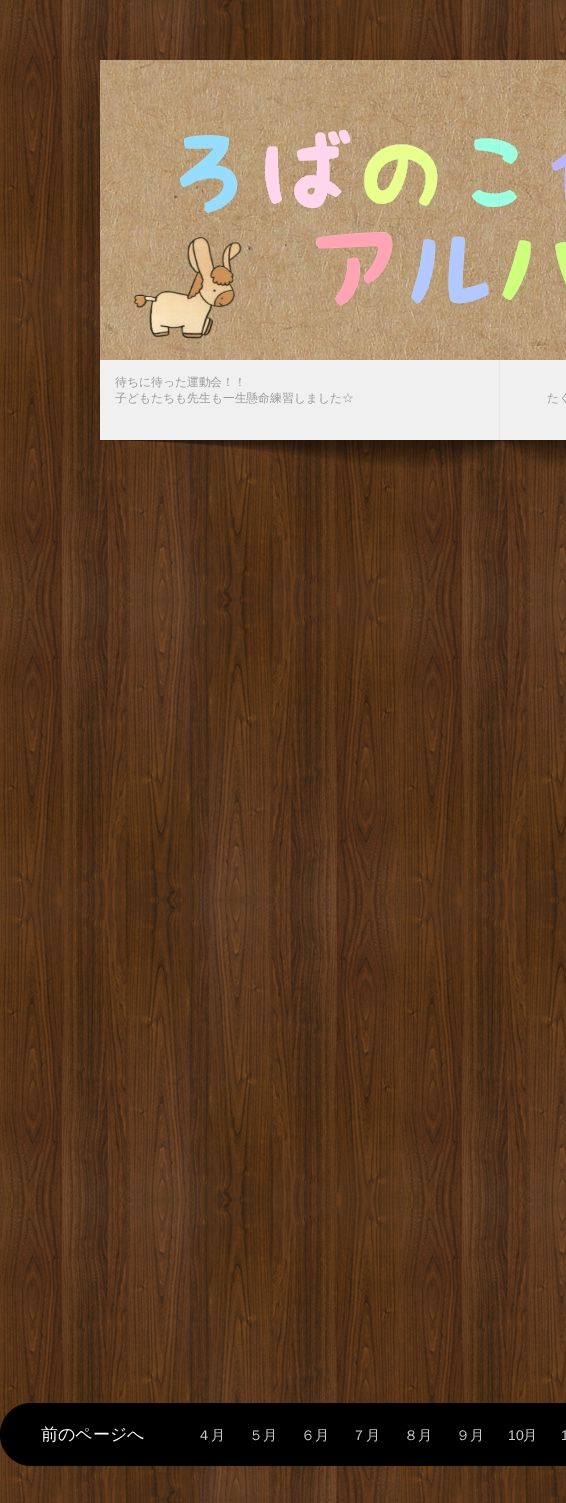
%!PS
<< /PageSize [566 1503] /PageUsesTransparency true >> setpagedevice
/rgb { 3 { 255 div 3 1 roll } repeat setrgbcolor } def
/font { [ exch dup neg 0 0 3 -1 roll 0 0 ] selectfont } def
/text { moveto show } def
/alpha { dup .setfillconstantalpha .setstrokeconstantalpha } def
/roundrect { 5 dict begin { /r /h /w /y /x } { exch def } forall
  x r add y moveto x w add y 2 copy h add r arct x w add y h add x 1 index r arct
  x y h add x y r arct x y 2 copy exch w add exch r arct closepath end } def
/picture { 5 dict begin { /h /w /y /x /name } { exch def } forall
  gsave x y translate w h scale
  w h 8 [w 0 0 h 0 0] name (r) file false 3 colorimage grestore end } def
0 .pushpdf14devicefilter
0 1503 translate 1 -1 scale
4 setmiterlimit
255 255 255 rgb
0 0 566 1503 rectfill
(img_01.rgb) 0 0 566 1503 picture
(img_02.rgb) 100 440 466 28 picture
(img_03.rgb) 100 60 400 300 picture
240 240 240 rgb
100 360 466 80 rectfill
0.03 alpha
0 0 0 rgb
499 60 1 380 rectfill
1 alpha
(img_04.rgb) 500 60 66 300 picture
0.03 alpha
255 255 255 rgb
500 60 1 276 rectfill
1 alpha
0 0 0 rgb
0 1403 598 63 31.5 roundrect fill
/WenQuanYiZenHei-Medium 11.8 font
153 153 153 rgb
(待ちに待った運動会！！) 115 386 text
(子どもたちも先生も一生懸命練習しました☆) 115 402 text
(たく) 547 402 text
/WenQuanYiZenHei-Medium 17 font
255 255 255 rgb
(前のページへ) 41 1440 text
/WenQuanYiZenHei-Medium 14 font
204 204 204 rgb
(４月) 197 1440 text
(５月) 249 1440 text
(６月) 301 1440 text
(７月) 352 1440 text
(８月) 404 1440 text
(９月) 456 1440 text
/LiberationSans-Regular 14 font
(10) 508 1440 text
/WenQuanYiZenHei-Medium 14 font
(月) 523 1440 text
/LiberationSans-Regular 14 font
(1) 561 1440 text
.poppdf14devicefilter showpage
